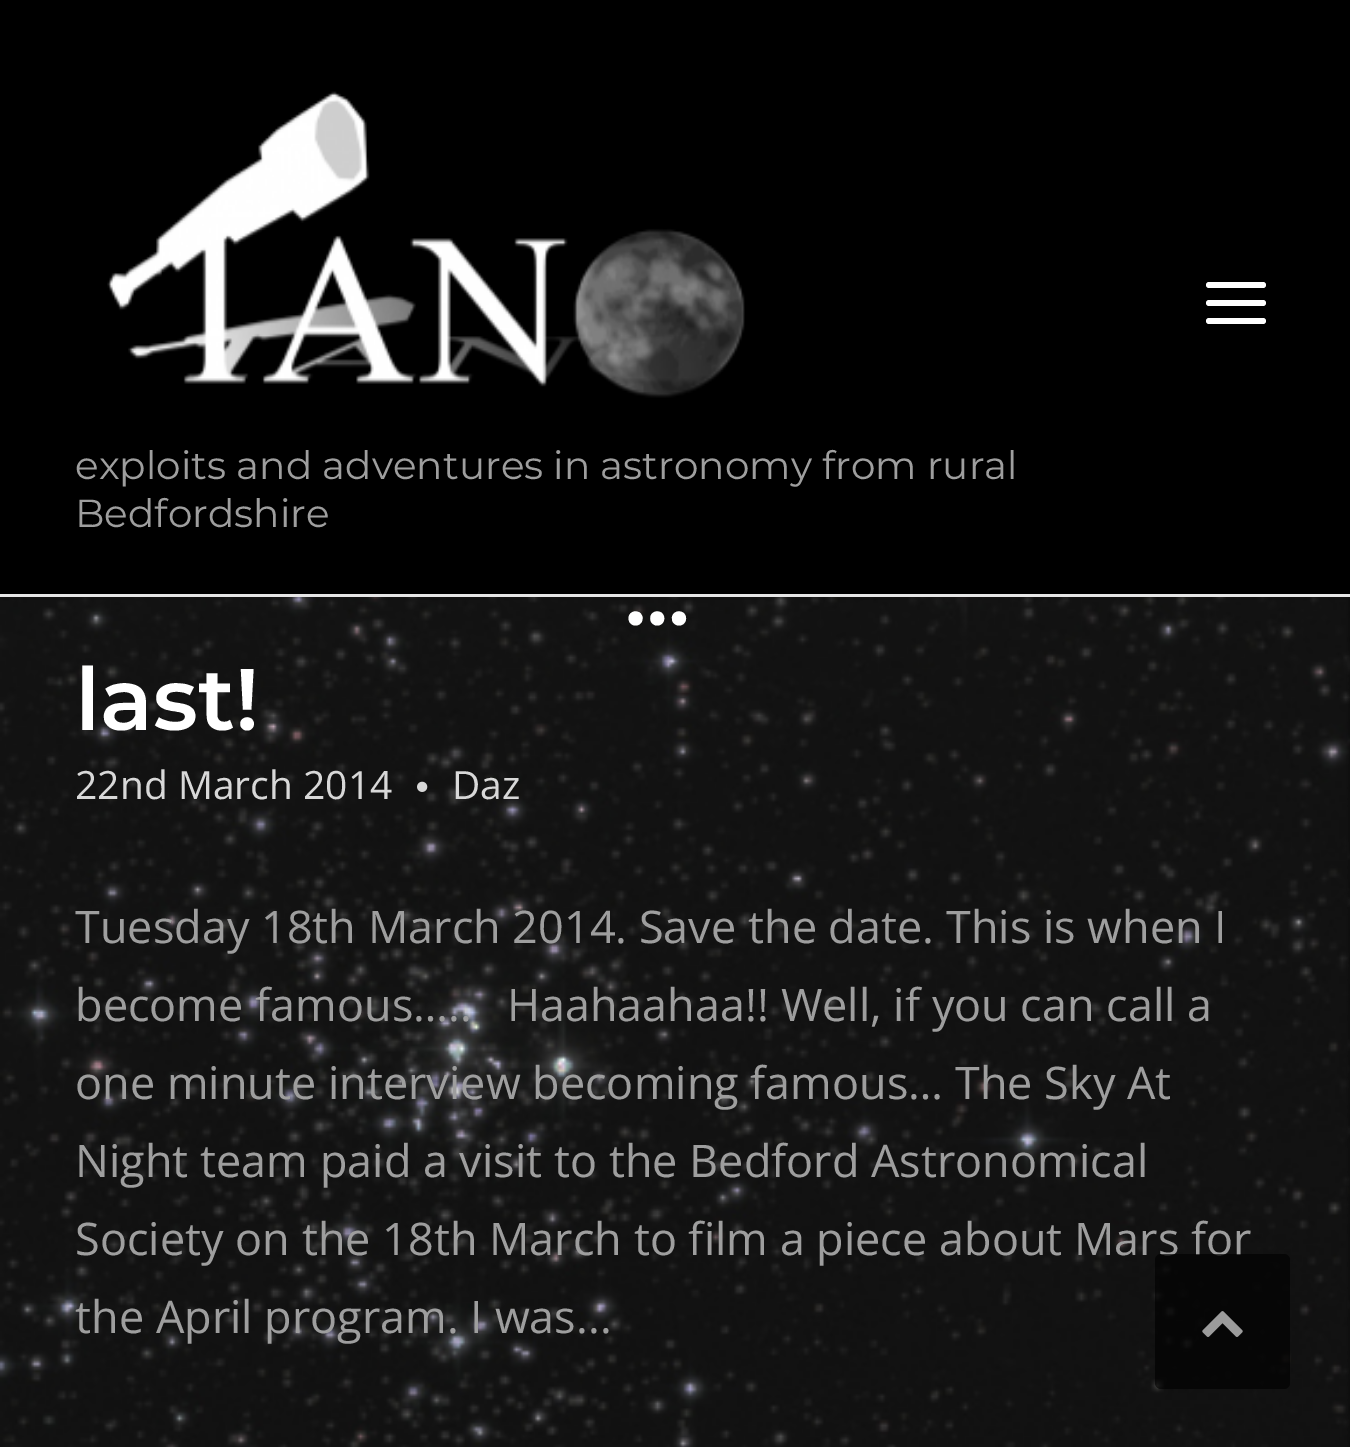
%!PS
<< /PageSize [1350 1447] /PageUsesTransparency true >> setpagedevice
/rgb { 3 { 255 div 3 1 roll } repeat setrgbcolor } def
/font { [ exch dup neg 0 0 3 -1 roll 0 0 ] selectfont } def
/text { moveto show } def
/alpha { dup .setfillconstantalpha .setstrokeconstantalpha } def
/roundrect { 5 dict begin { /r /h /w /y /x } { exch def } forall
  x r add y moveto x w add y 2 copy h add r arct x w add y h add x 1 index r arct
  x y h add x y r arct x y 2 copy exch w add exch r arct closepath end } def
/picture { 5 dict begin { /h /w /y /x /name } { exch def } forall
  gsave x y translate w h scale
  w h 8 [w 0 0 h 0 0] name (r) file false 3 colorimage grestore end } def
0 .pushpdf14devicefilter
0 1447 translate 1 -1 scale
4 setmiterlimit
10 10 10 rgb
0 0 1350 1447 rectfill
(img_01.rgb) 0 597 1350 850 picture
0 0 0 rgb
0 0 1350 594 rectfill
230 230 230 rgb
0 594 1350 3 rectfill
255 255 255 rgb
1206 282 60 6 3 roundrect fill
1206 300 60 6 3 roundrect fill
1206 318 60 6 3 roundrect fill
(img_02.rgb) 107 91 638 307 picture
(img_03.rgb) 417 781 11 11 picture
/Montserrat-Regular 39 font
158 158 158 rgb
(exploits and adventures in astronomy from rural) 75 479 text
(Bedfordshire) 75 527 text
/Montserrat-SemiBold 87 font
255 255 255 rgb
(…) 625 625 text
(last!) 75 730 text
/OpenSans-Regular 39 font
216 216 216 rgb
(22nd March 2014) 75 799 text
(Daz) 452 799 text
/OpenSans-Regular 45 font
158 158 158 rgb
(Tuesday 18th March 2014. Save the date. This is when I) 75 943 text
(become famous…..   Haahaahaa!! Well, if you can call a) 75 1021 text
(one minute interview becoming famous… The Sky At) 75 1099 text
(Night team paid a visit to the Bedford Astronomical) 75 1177 text
(Society on the 18th March to film a piece about Mars for) 75 1255 text
(the April program. I was...) 75 1333 text
0.65 alpha
0 0 0 rgb
1155 1254 135 135 6 roundrect fill
1 alpha
(img_04.rgb) 1202 1311 41 26 picture
.poppdf14devicefilter showpage
